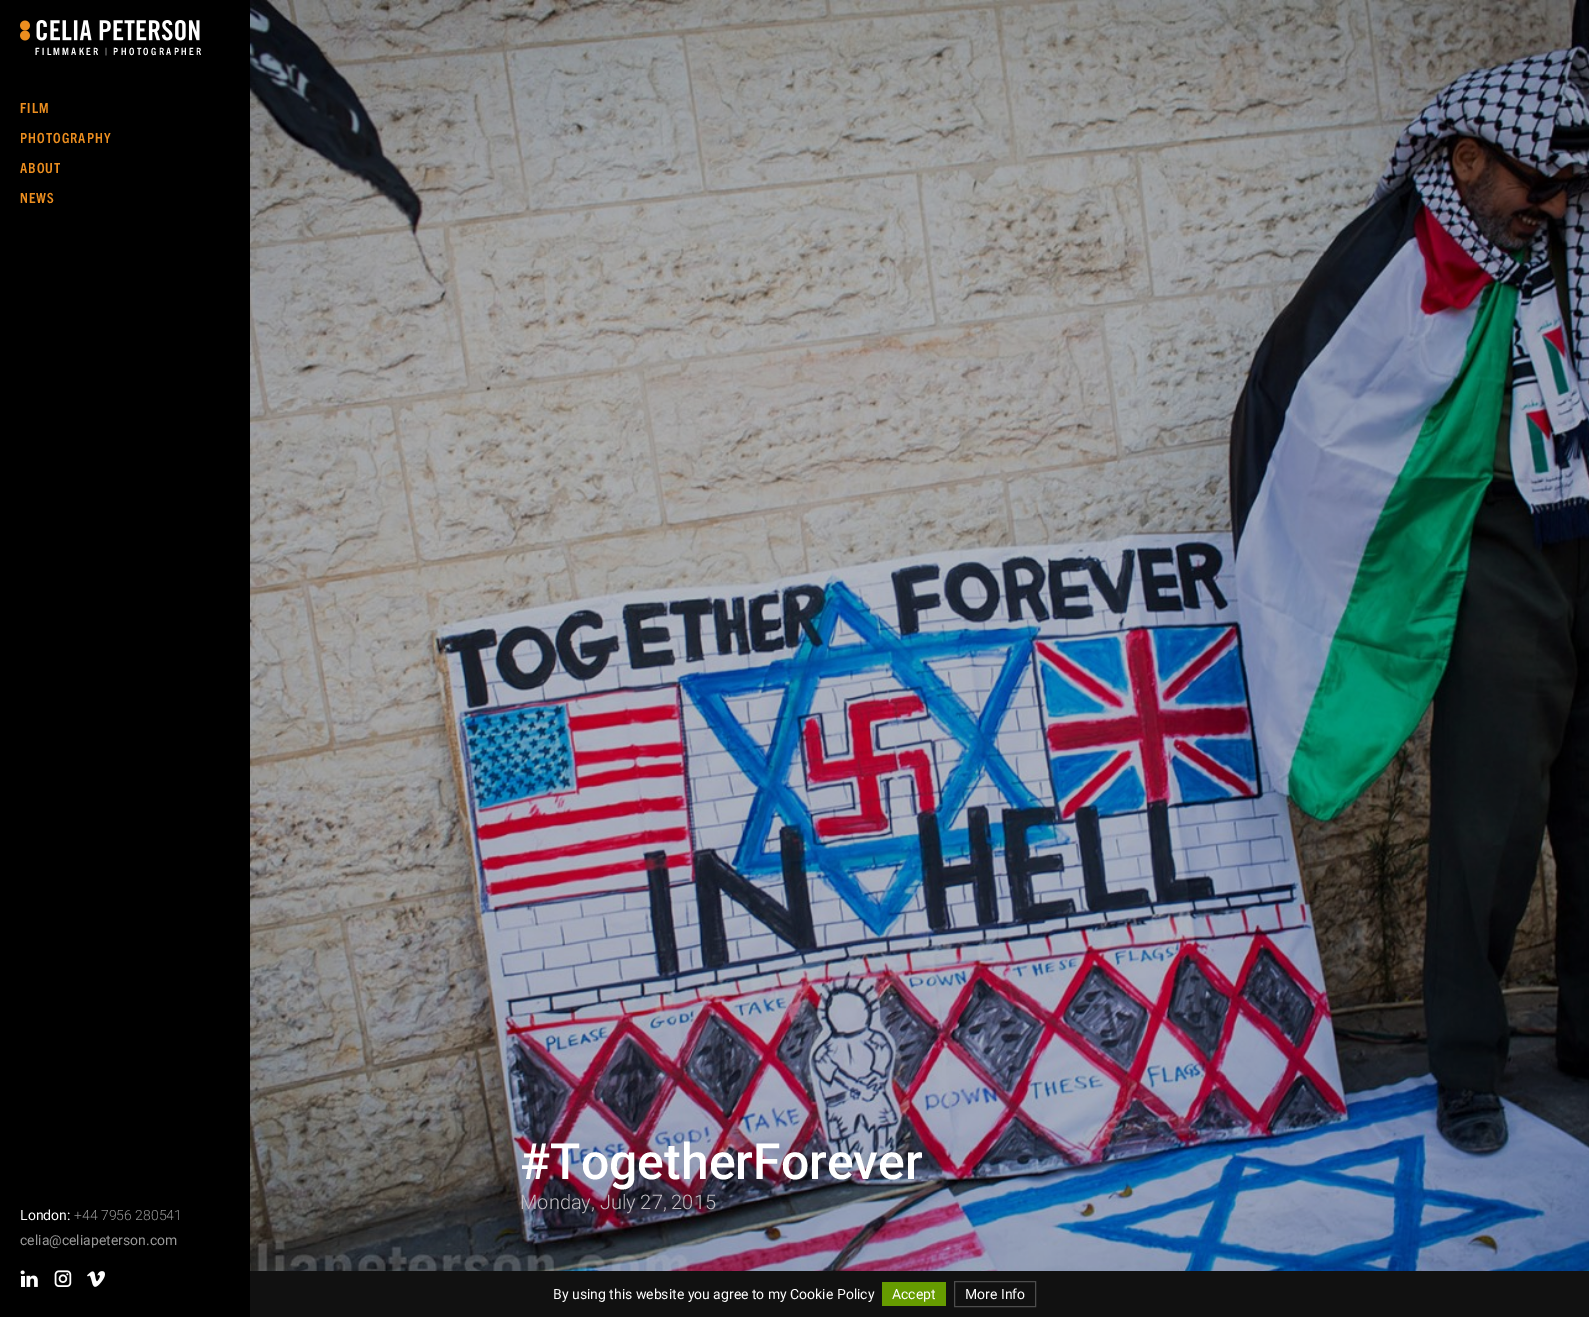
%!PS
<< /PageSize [1589 1317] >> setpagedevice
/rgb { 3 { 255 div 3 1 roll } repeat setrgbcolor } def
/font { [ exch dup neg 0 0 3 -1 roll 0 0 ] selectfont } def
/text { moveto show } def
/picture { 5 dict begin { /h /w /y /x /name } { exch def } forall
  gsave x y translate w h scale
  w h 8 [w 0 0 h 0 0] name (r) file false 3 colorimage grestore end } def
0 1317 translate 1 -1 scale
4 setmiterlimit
255 255 255 rgb
0 0 1589 1317 rectfill
0 0 0 rgb
0 0 250 1317 rectfill
(img_01.rgb) 20 20 180 21 picture
(img_02.rgb) 20 1270 18 17 picture
(img_03.rgb) 54 1270 18 17 picture
(img_04.rgb) 87 1271 18 16 picture
(img_05.rgb) 250 0 1339 1271 picture
17 17 17 rgb
250 1271 1339 46 rectfill
102 155 0 rgb
882 1282 64 24 rectfill
77 77 77 rgb
954.5 1281.5 81 25 rectstroke
/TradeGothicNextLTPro-Bold 10 font
255 255 255 rgb
35 55 moveto 2.3 0 (FILMMAKER | PHOTOGRAPHER) ashow
/TradeGothicNextLTPro-Bold 14 font
236 142 31 rgb
20 113 moveto 1 0 (FILM) ashow
20 143 moveto 1 0 (PHOTOGRAPHY) ashow
20 173 moveto 1 0 (ABOUT) ashow
20 203 moveto 1 0 (NEWS) ashow
/Roboto-Regular 14 font
255 255 255 rgb
(London:) 20 1220 text
/Roboto-Light 14 font
153 153 153 rgb
(+44 7956 280541) 74 1220 text
/Roboto-Regular 14 font
(celia@celiapeterson.com) 20 1245 text
/Roboto-Medium 50 font
255 255 255 rgb
(#TogetherForever) 520 1179 text
/Roboto-Light 20 font
195 190 195 rgb
(Monday, July 27, 2015) 520 1209 text
/Roboto-Regular 14 font
255 255 255 rgb
(By using this website you agree to my Cookie Policy) 553 1299 text
(Accept) 892 1299 text
(More Info) 965 1299 text
showpage
